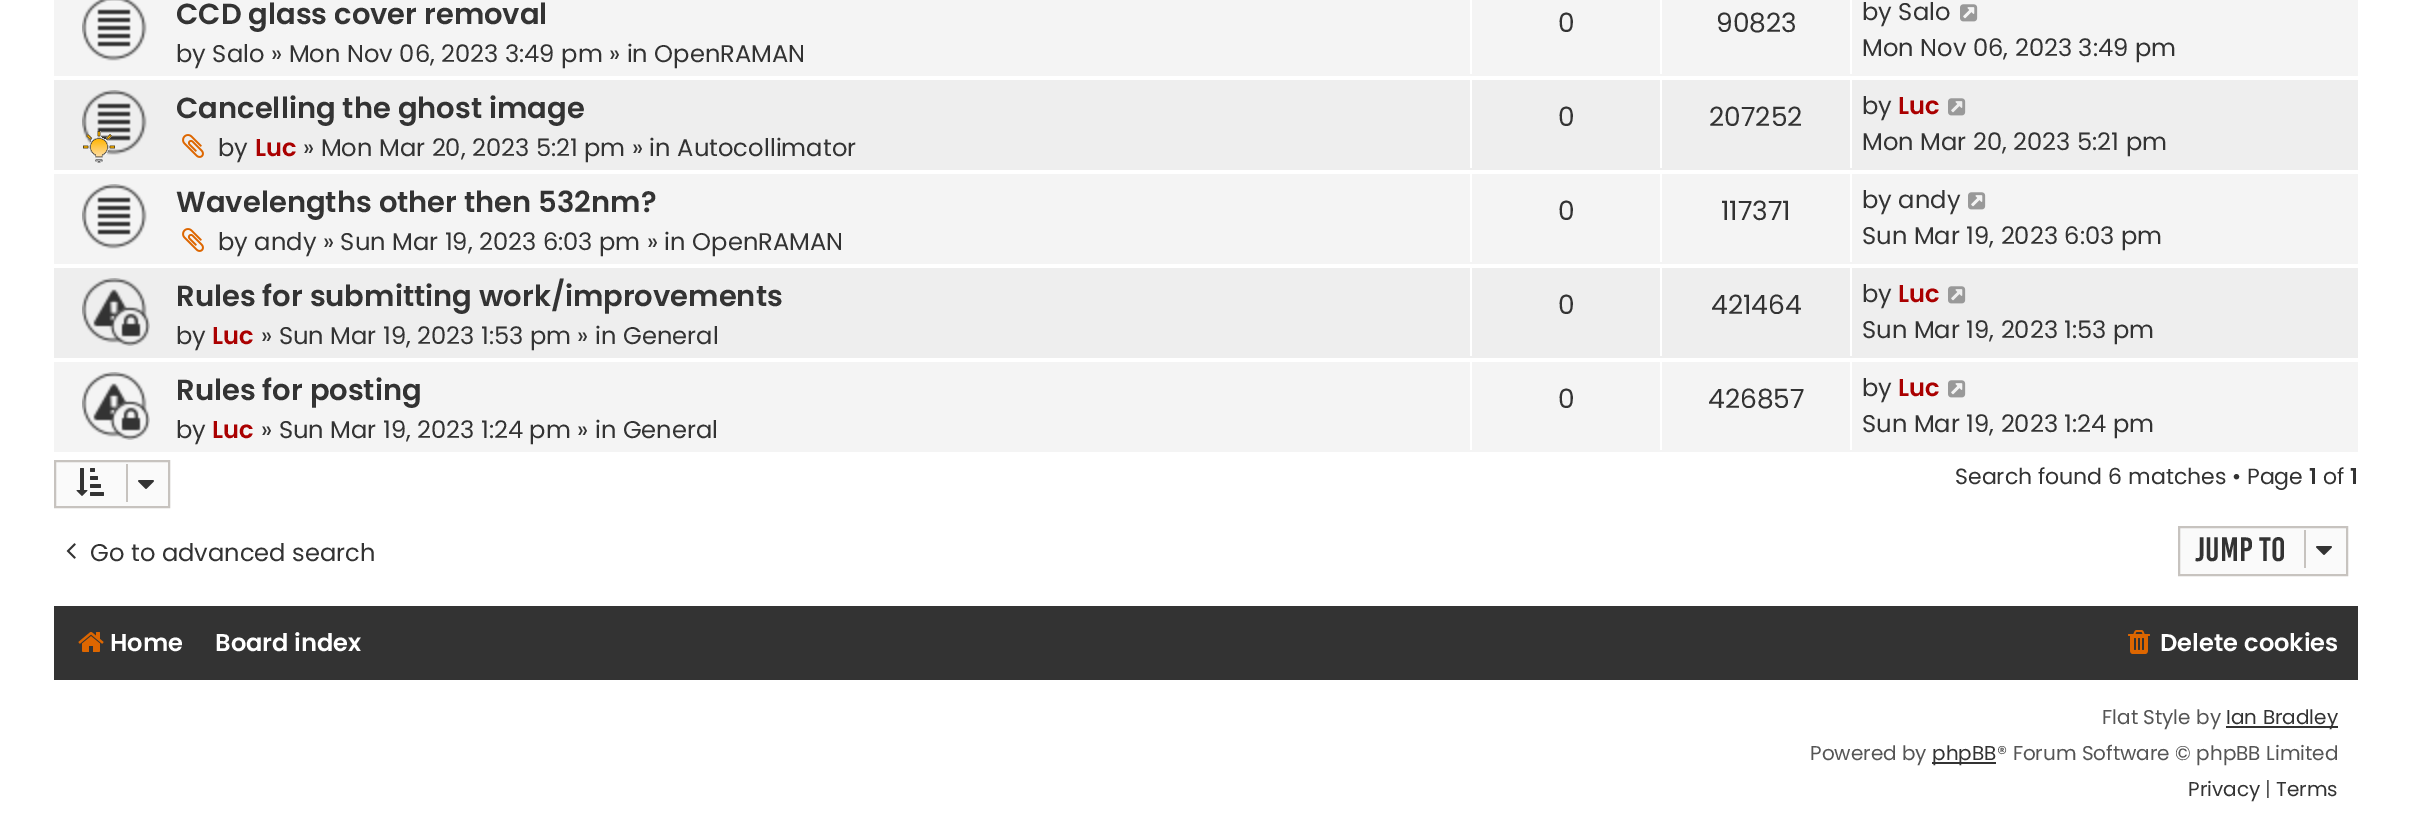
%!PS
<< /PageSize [2420 815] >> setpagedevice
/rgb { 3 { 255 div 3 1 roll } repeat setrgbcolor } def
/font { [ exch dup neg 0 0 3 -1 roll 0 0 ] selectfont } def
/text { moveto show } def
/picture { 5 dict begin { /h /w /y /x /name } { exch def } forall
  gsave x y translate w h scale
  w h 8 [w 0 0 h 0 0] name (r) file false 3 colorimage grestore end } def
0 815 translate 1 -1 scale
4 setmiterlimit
255 255 255 rgb
0 0 2420 815 rectfill
244 244 244 rgb
54 0 2304 76 rectfill
(img_01.rgb) 82 0 65 61 picture
255 255 255 rgb
1470 0 2 74 rectfill
1660 0 2 74 rectfill
1850 0 2 74 rectfill
(img_02.rgb) 1960 4 18 18 picture
238 238 238 rgb
54 80 2304 90 rectfill
(img_03.rgb) 82 90 65 65 picture
(img_04.rgb) 83 131 32 32 picture
(img_05.rgb) 182 134 22 24 picture
255 255 255 rgb
1470 80 2 88 rectfill
1660 80 2 88 rectfill
1850 80 2 88 rectfill
(img_06.rgb) 1948 98 18 18 picture
244 244 244 rgb
54 174 2304 90 rectfill
(img_07.rgb) 82 184 65 65 picture
(img_08.rgb) 182 228 22 24 picture
255 255 255 rgb
1470 174 2 88 rectfill
1660 174 2 88 rectfill
1850 174 2 88 rectfill
(img_02.rgb) 1968 192 18 18 picture
238 238 238 rgb
54 268 2304 90 rectfill
(img_09.rgb) 82 278 68 68 picture
255 255 255 rgb
1470 268 2 88 rectfill
1660 268 2 88 rectfill
1850 268 2 88 rectfill
(img_06.rgb) 1948 286 18 18 picture
244 244 244 rgb
54 362 2304 90 rectfill
(img_10.rgb) 82 372 68 68 picture
255 255 255 rgb
1470 362 2 88 rectfill
1660 362 2 88 rectfill
1850 362 2 88 rectfill
(img_02.rgb) 1948 380 18 18 picture
250 250 250 rgb
55 461 moveto 114 0 rlineto 0 46 rlineto -114 0 rlineto closepath gsave fill grestore
199 195 191 rgb
2 setlinewidth
stroke
(img_11.rgb) 76 468 28 28 picture
126 464 2 38 rectfill
(img_12.rgb) 138 480 16 9 picture
(img_13.rgb) 66 543 10 16 picture
250 250 250 rgb
2179 527 moveto 168 0 rlineto 0 48 rlineto -168 0 rlineto closepath gsave fill grestore
199 195 191 rgb
stroke
2304 530 2 38 rectfill
(img_12.rgb) 2316 546 16 9 picture
51 51 51 rgb
54 606 2304 74 rectfill
(img_14.rgb) 78 632 26 20 picture
(img_15.rgb) 2128 630 22 24 picture
2226 726 112 2 rectfill
1932 762 64 2 rectfill
/Poppins-SemiBold 29 font
(CCD glass cover removal) 176 24 text
/Poppins-Regular 24.2 font
(by Salo » Mon Nov 06, 2023 3:49 pm » in OpenRAMAN) 176 62 text
/Poppins-Regular 26.5 font
(0) 1558 32 text
(90823) 1716 32 text
/Poppins-Regular 24.2 font
(by Salo) 1862 20 text
(Mon Nov 06, 2023 3:49 pm) 1862 56 text
/Poppins-SemiBold 29 font
(Cancelling the ghost image) 176 118 text
/Poppins-Regular 24.2 font
(by) 218 156 text
/Poppins-SemiBold 24.2 font
170 0 0 rgb
(Luc) 255 156 text
/Poppins-Regular 24.2 font
51 51 51 rgb
(» Mon Mar 20, 2023 5:21 pm » in Autocollimator) 303 156 text
/Poppins-Regular 26.5 font
(0) 1558 126 text
(207252) 1709 126 text
/Poppins-Regular 24.2 font
(by) 1862 114 text
/Poppins-SemiBold 24.2 font
170 0 0 rgb
(Luc) 1898 114 text
/Poppins-Regular 24.2 font
51 51 51 rgb
(Mon Mar 20, 2023 5:21 pm) 1862 150 text
/Poppins-SemiBold 29 font
(Wavelengths other then 532nm?) 176 212 text
/Poppins-Regular 24.2 font
(by andy » Sun Mar 19, 2023 6:03 pm » in OpenRAMAN) 218 250 text
/Poppins-Regular 26.5 font
(0) 1558 220 text
(117371) 1721 220 text
/Poppins-Regular 24.2 font
(by andy) 1862 208 text
(Sun Mar 19, 2023 6:03 pm) 1862 244 text
/Poppins-SemiBold 29 font
(Rules for submitting work/improvements) 176 306 text
/Poppins-Regular 24.2 font
(by) 176 344 text
/Poppins-SemiBold 24.2 font
170 0 0 rgb
(Luc) 212 344 text
/Poppins-Regular 24.2 font
51 51 51 rgb
(» Sun Mar 19, 2023 1:53 pm » in General) 261 344 text
/Poppins-Regular 26.5 font
(0) 1558 314 text
(421464) 1711 314 text
/Poppins-Regular 24.2 font
(by) 1862 302 text
/Poppins-SemiBold 24.2 font
170 0 0 rgb
(Luc) 1898 302 text
/Poppins-Regular 24.2 font
51 51 51 rgb
(Sun Mar 19, 2023 1:53 pm) 1862 338 text
/Poppins-SemiBold 29 font
(Rules for posting) 176 400 text
/Poppins-Regular 24.2 font
(by) 176 438 text
/Poppins-SemiBold 24.2 font
170 0 0 rgb
(Luc) 212 438 text
/Poppins-Regular 24.2 font
51 51 51 rgb
(» Sun Mar 19, 2023 1:24 pm » in General) 261 438 text
/Poppins-Regular 26.5 font
(0) 1558 408 text
(426857) 1708 408 text
/Poppins-Regular 24.2 font
(by) 1862 396 text
/Poppins-SemiBold 24.2 font
170 0 0 rgb
(Luc) 1898 396 text
/Poppins-Regular 24.2 font
51 51 51 rgb
(Sun Mar 19, 2023 1:24 pm) 1862 432 text
/Poppins-Regular 22 font
(Search found 6 matches • Page) 1955 484 text
/Poppins-SemiBold 22 font
(1) 2309 484 text
/Poppins-Regular 22 font
(of) 2323 484 text
/Poppins-SemiBold 22 font
(1) 2350 484 text
/Poppins-Regular 24.2 font
(Go to advanced search) 90 561 text
/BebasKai-Regular 26 font
(Jump to) 2195 561 text
/Poppins-SemiBold 24.2 font
255 255 255 rgb
(Home) 110 651 text
(Board index) 215 651 text
(Delete cookies) 2160 651 text
/Poppins-Regular 20 font
85 85 85 rgb
(Flat Style by) 2102 724 text
51 51 51 rgb
(Ian Bradley) 2226 724 text
85 85 85 rgb
(Powered by) 1810 760 text
51 51 51 rgb
(phpBB) 1932 760 text
85 85 85 rgb
(® Forum Software © phpBB Limited) 1997 760 text
51 51 51 rgb
(Privacy) 2188 796 text
85 85 85 rgb
(|) 2265 796 text
51 51 51 rgb
(Terms) 2276 796 text
showpage
